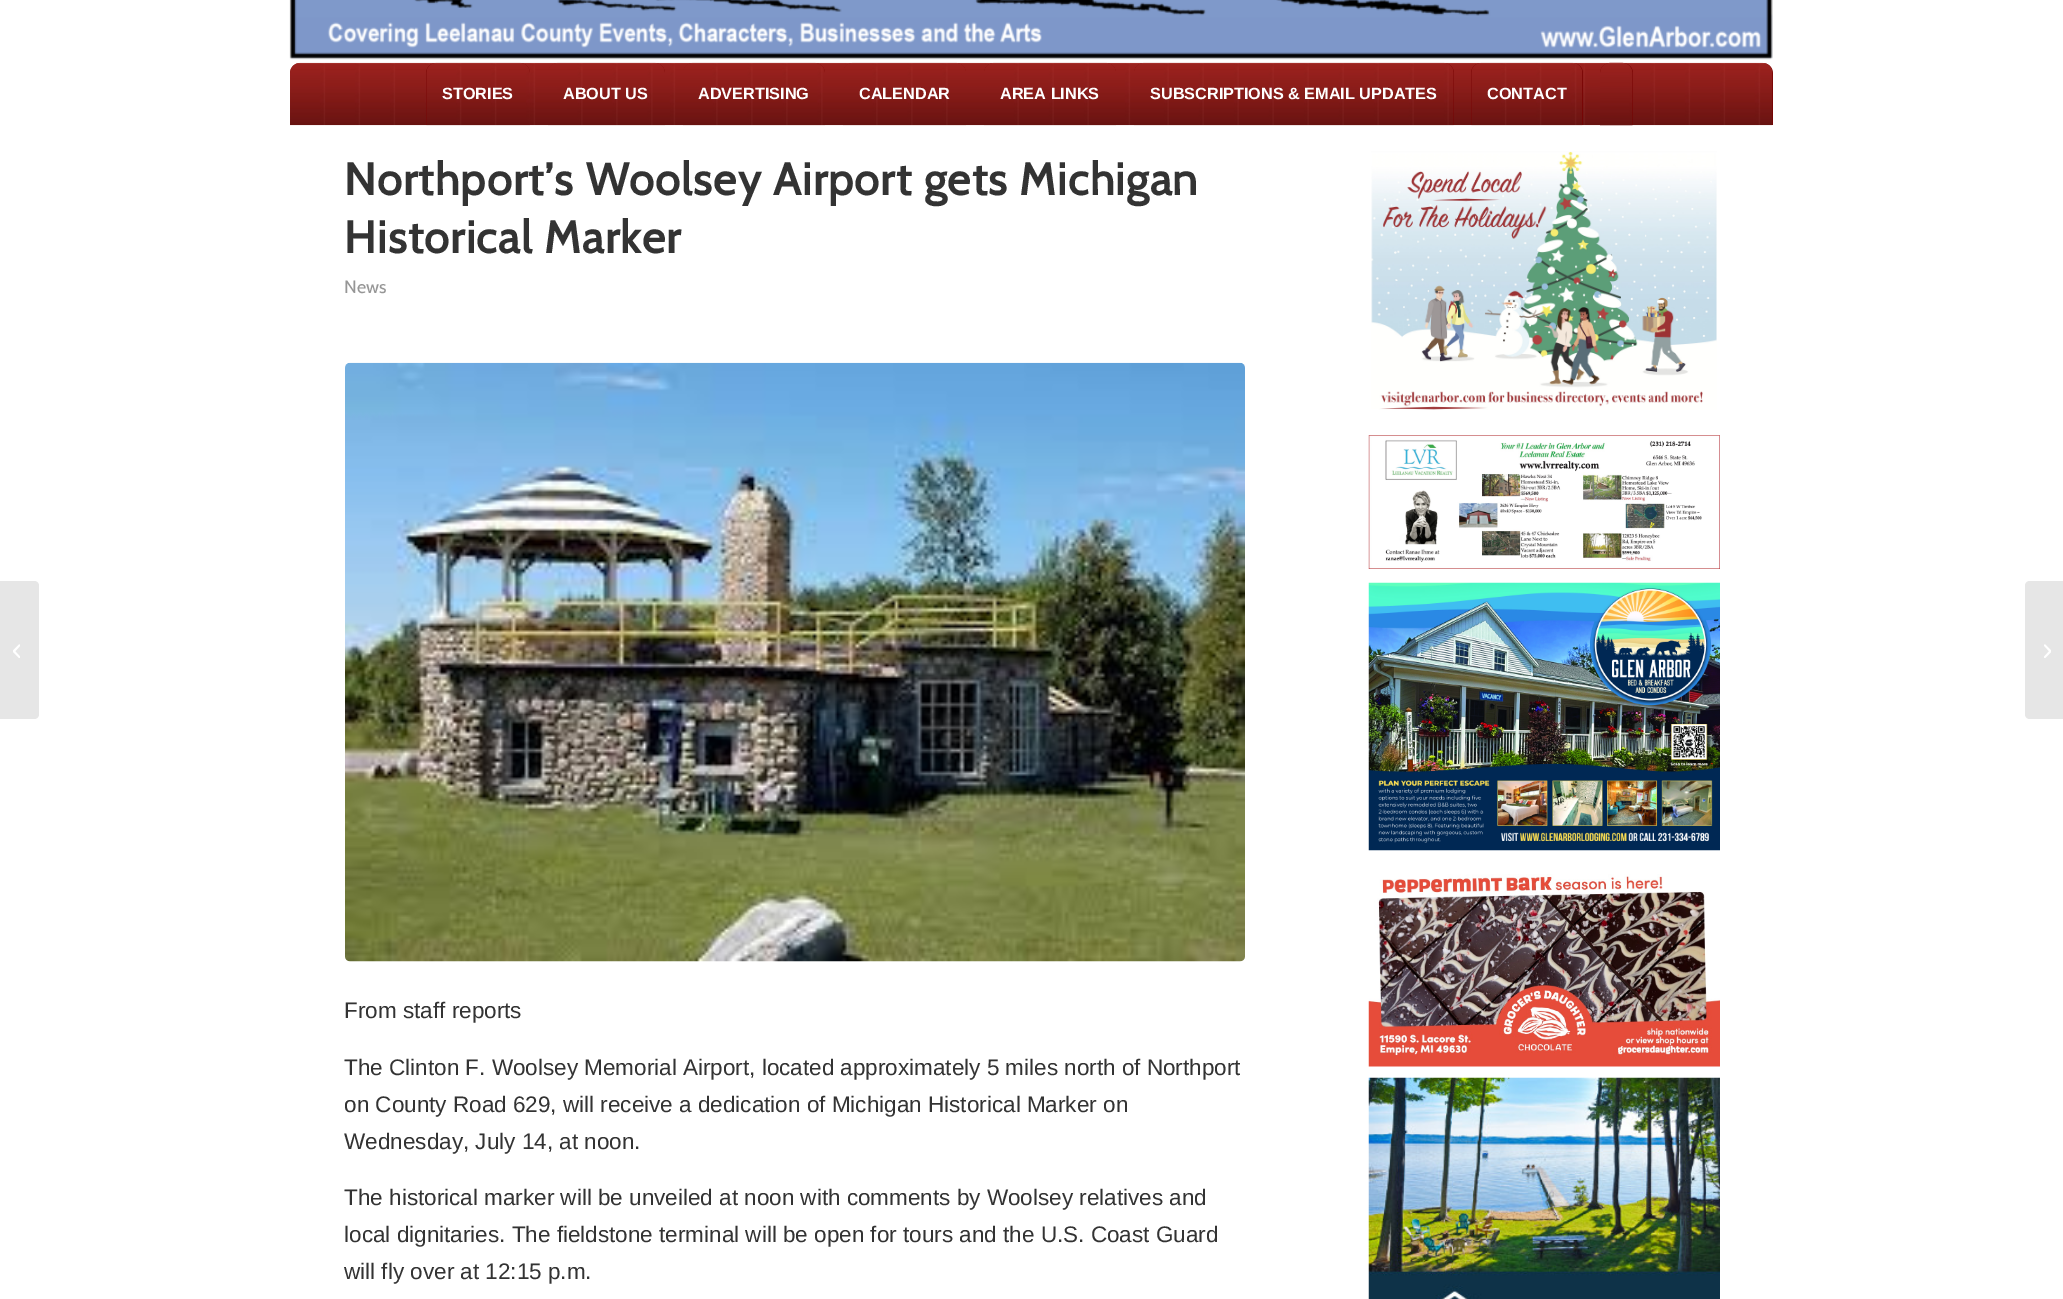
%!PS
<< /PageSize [2063 1299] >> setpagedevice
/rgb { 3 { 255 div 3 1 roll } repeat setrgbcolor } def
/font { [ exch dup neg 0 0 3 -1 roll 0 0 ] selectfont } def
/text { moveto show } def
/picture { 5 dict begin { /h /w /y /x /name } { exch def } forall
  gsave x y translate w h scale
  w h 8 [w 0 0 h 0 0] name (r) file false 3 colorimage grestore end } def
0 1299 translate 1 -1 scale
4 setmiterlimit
255 255 255 rgb
0 0 2063 1299 rectfill
(img_01.rgb) 289 0 1484 60 picture
117 0 0 rgb
300 63 moveto 1463 0 rlineto 5.5 0 10 4.5 10 10 rcurveto 0 52 rlineto -1483 0 rlineto 0 -52 rlineto 0 -5.5 4.5 -10 10 -10 rcurveto closepath fill
(img_02.rgb) 290 62 1483 64 picture
436 63 moveto 84 0 rlineto 5.5 0 10 4.5 10 10 rcurveto 0 52 rlineto -104 0 rlineto 0 -52 rlineto 0 -5.5 4.5 -10 10 -10 rcurveto closepath fill
(img_03.rgb) 426 62 104 64 picture
(img_04.rgb) 548 62 117 64 picture
(img_05.rgb) 683 62 142 64 picture
(img_06.rgb) 843 62 123 64 picture
(img_07.rgb) 984 62 132 64 picture
1144 63 moveto 300 0 rlineto 5.5 0 10 4.5 10 10 rcurveto 0 52 rlineto -320 0 rlineto 0 -52 rlineto 0 -5.5 4.5 -10 10 -10 rcurveto closepath fill
(img_08.rgb) 1134 62 320 64 picture
1481 63 moveto 92 0 rlineto 5.5 0 10 4.5 10 10 rcurveto 0 52 rlineto -112 0 rlineto 0 -52 rlineto 0 -5.5 4.5 -10 10 -10 rcurveto closepath fill
(img_09.rgb) 1471 62 112 64 picture
1610 63 moveto 13 0 rlineto 5.5 0 10 4.5 10 10 rcurveto 0 52 rlineto -33 0 rlineto 0 -52 rlineto 0 -5.5 4.5 -10 10 -10 rcurveto closepath fill
(img_10.rgb) 1600 62 33 64 picture
230 230 230 rgb
0 581 moveto 34 0 rlineto 3 0 5 2 5 5 rcurveto 0 128 rlineto 0 3 -2 5 -5 5 rcurveto -34 0 rlineto closepath fill
(img_11.rgb) 13 644 7 14 picture
(img_12.rgb) 345 362 900 600 picture
(img_13.rgb) 1371 151 346 259 picture
(img_14.rgb) 1368 435 352 134 picture
(img_15.rgb) 1368 582 352 269 picture
(img_16.rgb) 1368 874 352 193 picture
(img_17.rgb) 1368 1077 352 222 picture
2030 581 moveto 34 0 rlineto 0 138 rlineto -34 0 rlineto -3 0 -5 -2 -5 -5 rcurveto 0 -128 rlineto 0 -3 2 -5 5 -5 rcurveto closepath fill
(img_18.rgb) 2044 644 7 14 picture
/LiberationSans-Bold 16.25 font
255 255 255 rgb
(STORIES) 442 99 text
(ABOUT US) 563 99 text
(ADVERTISING) 698 99 text
(CALENDAR) 859 99 text
(AREA LINKS) 1000 99 text
(SUBSCRIPTIONS & EMAIL UPDATES) 1150 99 text
(CONTACT) 1487 99 text
/Cabin-Bold 45 font
51 51 51 rgb
344 195 moveto 1.25 0 (Northport’s Woolsey Airport gets Michigan) ashow
344 253 moveto 1.25 0 (Historical Marker) ashow
/Cabin-Regular 18 font
150 150 150 rgb
(News) 344 293 text
/LiberationSans-Regular 22.5 font
51 51 51 rgb
(From staff reports) 344 1018 text
(The Clinton F. Woolsey Memorial Airport, located approximately 5 miles north of Northport) 344 1075 text
(on County Road 629, will receive a dedication of Michigan Historical Marker on) 344 1112 text
(Wednesday, July 14, at noon.) 344 1149 text
(The historical marker will be unveiled at noon with comments by Woolsey relatives and) 344 1205 text
(local dignitaries. The fieldstone terminal will be open for tours and the U.S. Coast Guard) 344 1242 text
(will fly over at 12:15 p.m.) 344 1279 text
showpage
